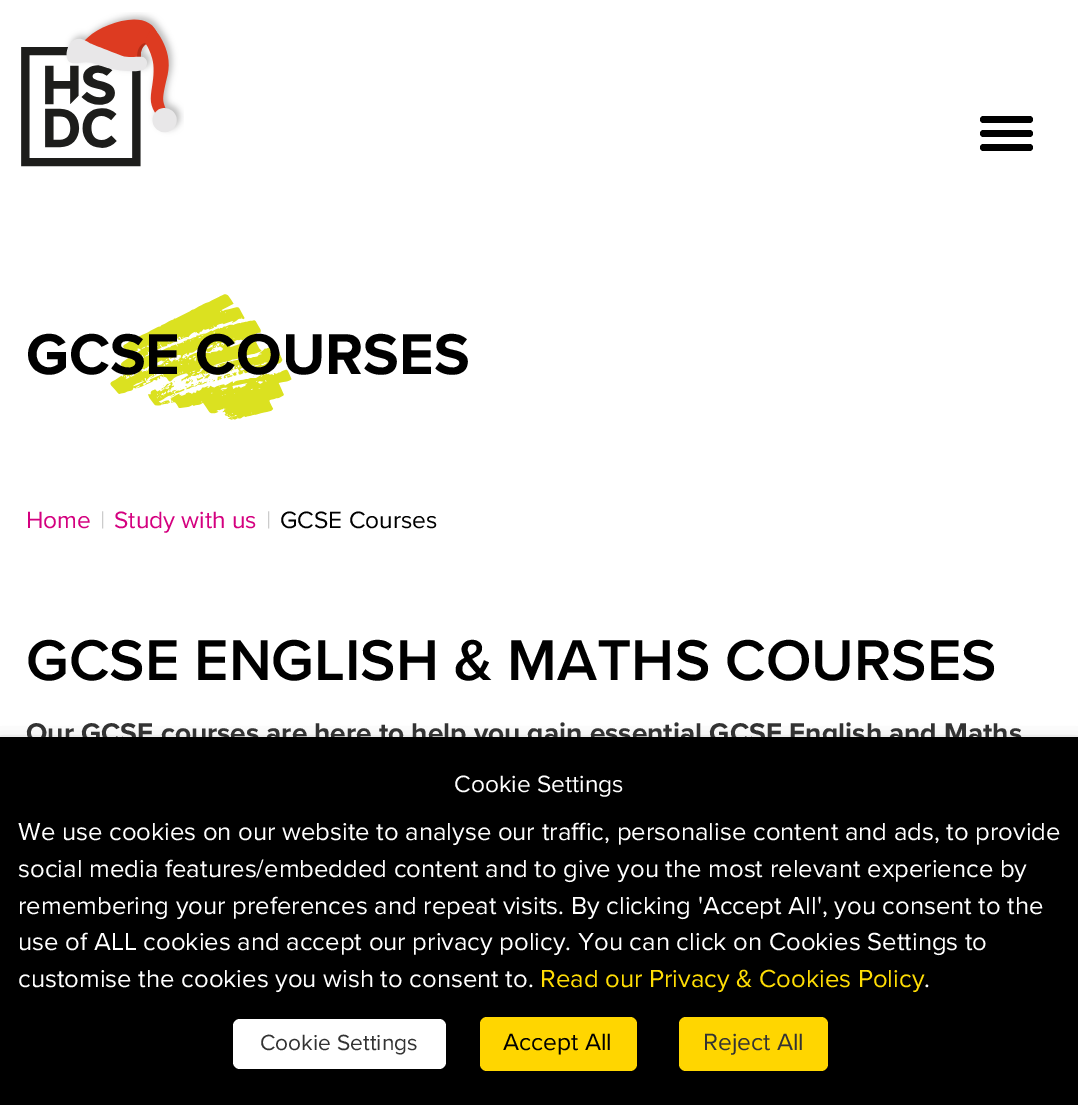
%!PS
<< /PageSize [1078 1105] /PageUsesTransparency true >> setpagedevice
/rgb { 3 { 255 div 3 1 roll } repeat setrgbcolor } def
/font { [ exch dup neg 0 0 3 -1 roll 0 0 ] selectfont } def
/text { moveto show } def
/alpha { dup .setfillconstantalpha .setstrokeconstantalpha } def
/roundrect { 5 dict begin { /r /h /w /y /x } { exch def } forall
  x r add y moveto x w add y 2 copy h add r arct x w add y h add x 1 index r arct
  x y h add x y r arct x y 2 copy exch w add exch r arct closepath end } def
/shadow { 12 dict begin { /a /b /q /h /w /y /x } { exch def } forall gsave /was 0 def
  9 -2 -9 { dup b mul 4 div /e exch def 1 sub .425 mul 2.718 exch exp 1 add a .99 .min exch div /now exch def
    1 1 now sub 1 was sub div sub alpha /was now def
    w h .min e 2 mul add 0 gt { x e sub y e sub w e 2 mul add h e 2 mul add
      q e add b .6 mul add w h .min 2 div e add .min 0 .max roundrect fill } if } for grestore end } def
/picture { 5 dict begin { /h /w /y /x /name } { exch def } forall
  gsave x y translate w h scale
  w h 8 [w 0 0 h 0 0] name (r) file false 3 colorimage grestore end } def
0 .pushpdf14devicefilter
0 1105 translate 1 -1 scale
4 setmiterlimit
255 255 255 rgb
0 0 1078 1105 rectfill
(img_01.rgb) 21 12 163 155 picture
0 0 0 rgb
980 116 53 7 3.5 roundrect fill
980 130 53 7 3.5 roundrect fill
980 144 53 7 3.5 roundrect fill
(img_02.rgb) 110 294 182 126 picture
0 746 1078 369 0 9 0.5 shadow
/ProximaNova-Bold 59.5 font
(GCSE COURSES) 26 374 text
/ProximaNova-Regular 24.5 font
212 0 127 rgb
(Home) 26 528 text
204 204 204 rgb
(|) 100 528 text
212 0 127 rgb
(Study with us) 114 528 text
204 204 204 rgb
(|) 266 528 text
0 0 0 rgb
(GCSE Courses) 280 528 text
/ProximaNova-SemiBold 59.5 font
(GCSE ENGLISH & MATHS COURSES) 26 680 text
/ProximaNova-Bold 28 font
51 51 51 rgb
(Our GCSE courses are here to help you gain essential GCSE English and Maths) 26 742 text
0 0 0 rgb
0 737 1078 368 rectfill
/ProximaNova-Regular 24.5 font
255 255 255 rgb
(Cookie Settings) 454 792 text
/ProximaNova-Regular 25.65 font
(We use cookies on our website to analyse our traffic, personalise content and ads, to provide) 18 840 text
(social media features/embedded content and to give you the most relevant experience by) 18 877 text
(remembering your preferences and repeat visits. By clicking 'Accept All', you consent to the) 18 914 text
(use of ALL cookies and accept our privacy policy. You can click on Cookies Settings to) 18 950 text
(customise the cookies you wish to consent to.) 18 987 text
255 221 4 rgb
(Read our Privacy & Cookies Policy) 540 987 text
255 255 255 rgb
(.) 924 987 text
233 1019 213 50 7 roundrect fill
/ProximaNova-Regular 22.75 font
51 51 51 rgb
(Cookie Settings) 260 1050 text
255 214 0 rgb
480 1017 157 54 7 roundrect fill
/ProximaNova-Regular 24.5 font
0 0 0 rgb
(Accept All) 503 1050 text
255 214 0 rgb
679 1017 149 54 7 roundrect fill
51 51 51 rgb
(Reject All) 703 1050 text
.poppdf14devicefilter showpage
